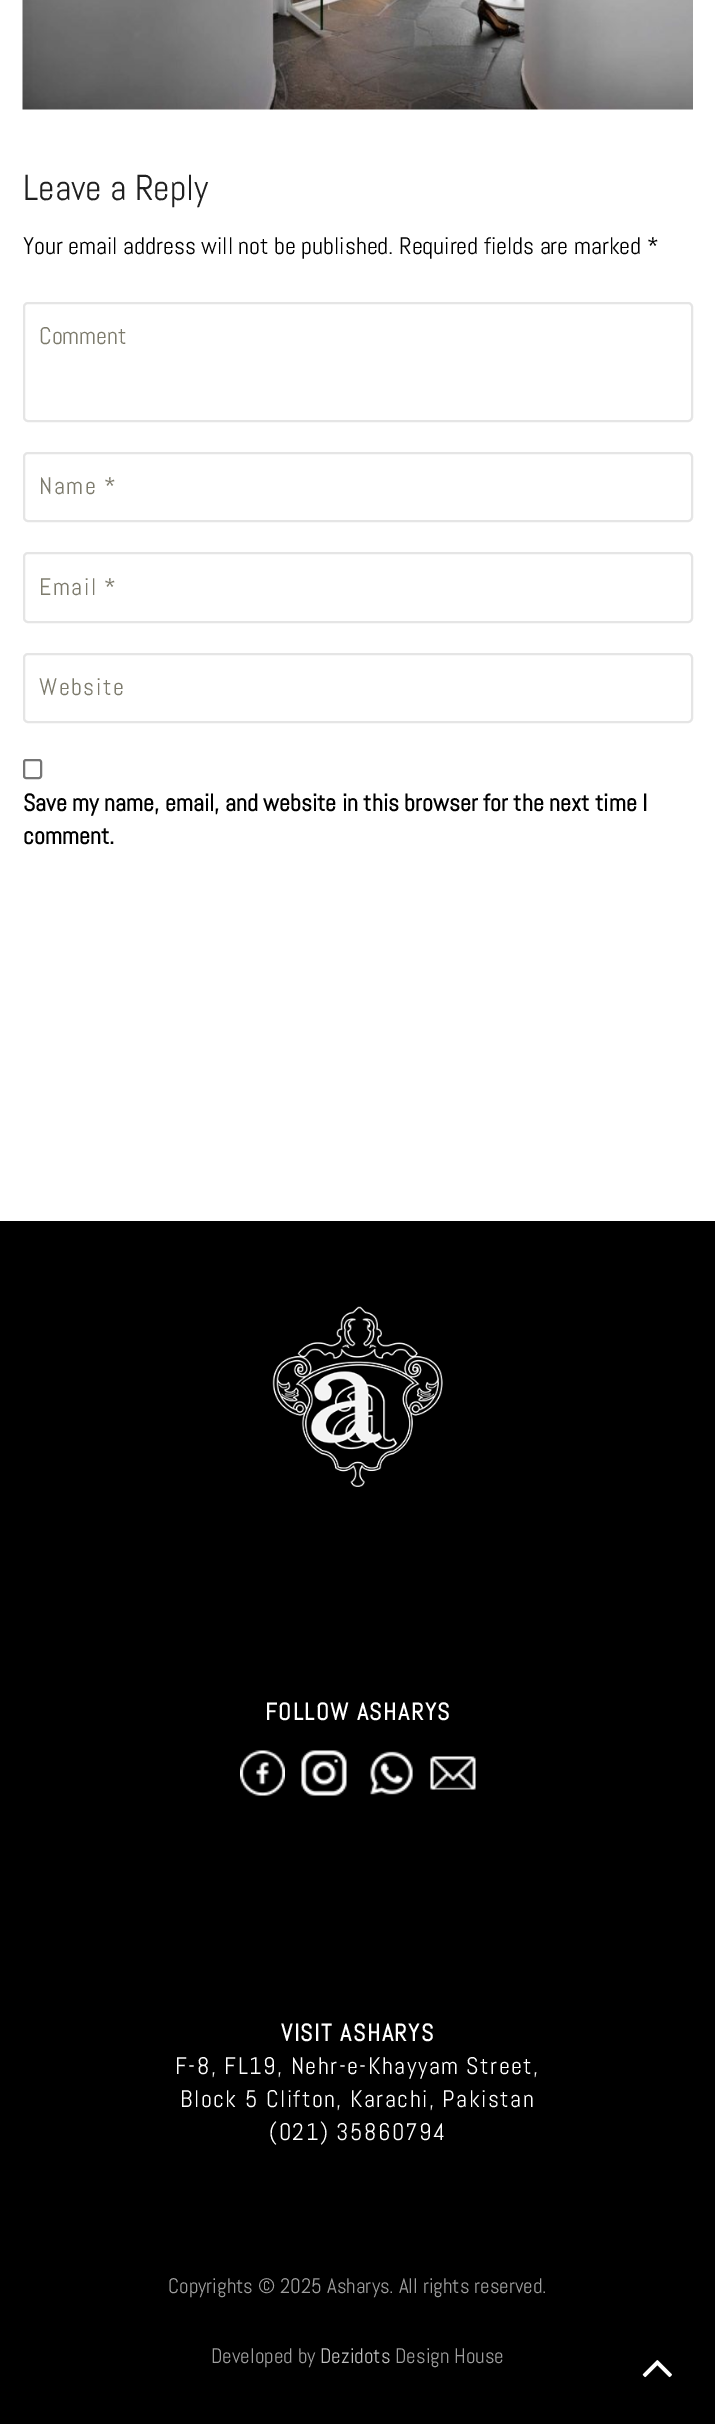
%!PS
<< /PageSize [715 2424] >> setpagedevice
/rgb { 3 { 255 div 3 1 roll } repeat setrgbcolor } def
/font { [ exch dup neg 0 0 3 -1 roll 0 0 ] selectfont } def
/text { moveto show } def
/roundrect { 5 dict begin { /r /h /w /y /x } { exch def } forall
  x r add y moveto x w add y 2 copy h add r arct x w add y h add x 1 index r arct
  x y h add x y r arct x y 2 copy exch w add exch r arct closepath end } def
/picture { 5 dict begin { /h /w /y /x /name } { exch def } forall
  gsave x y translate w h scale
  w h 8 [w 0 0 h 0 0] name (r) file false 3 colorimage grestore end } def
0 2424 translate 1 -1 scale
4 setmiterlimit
0 0 0 rgb
0 0 715 2424 rectfill
255 255 255 rgb
0 0 715 1221 rectfill
(img_01.rgb) 22 0 671 110 picture
229 229 229 rgb
2 setlinewidth
24 303 668 118 4 roundrect stroke
24 453 668 68 4 roundrect stroke
24 553 668 69 4 roundrect stroke
24 654 668 68 4 roundrect stroke
118 118 118 rgb
24 760 17 18 2 roundrect stroke
(img_02.rgb) 272 1306 171 181 picture
(img_03.rgb) 240 1750 45 46 picture
(img_04.rgb) 301 1750 46 46 picture
(img_05.rgb) 370 1751 43 44 picture
(img_06.rgb) 430 1756 46 34 picture
(img_07.rgb) 642 2360 30 18 picture
/Abel-Regular 36 font
32 32 32 rgb
(Leave a Reply) 23 200 text
/Abel-Regular 24 font
0 0 0 rgb
(Your email address will not be published. Required fields are marked *) 23 254 text
125 123 109 rgb
(Comment) 39 344 text
39 494 moveto 1.5 0 (Name *) ashow
39 595 moveto 1.5 0 (Email *) ashow
39 695 moveto 1.5 0 (Website) ashow
/Abel-Bold 24 font
0 0 0 rgb
(Save my name, email, and website in this browser for the next time I) 23 811 text
(comment.) 23 844 text
255 255 255 rgb
265 1720 moveto 1.5 0 (FOLLOW ASHARYS) ashow
281 2041 moveto 1.5 0 (VISIT ASHARYS) ashow
/Abel-Regular 24 font
175 2074 moveto 1.5 0 (F-8, FL19, Nehr-e-Khayyam Street,) ashow
180 2107 moveto 1.5 0 (Block 5 Clifton, Karachi, Pakistan) ashow
269 2140 moveto 1.5 0 (\(021\) 35860794) ashow
/Abel-Regular 21 font
158 158 158 rgb
(Copyrights © 2025 Asharys. All rights reserved.) 168 2293 text
(Developed by) 211 2363 text
191 191 191 rgb
(Dezidots) 320 2363 text
158 158 158 rgb
(Design House) 395 2363 text
showpage
